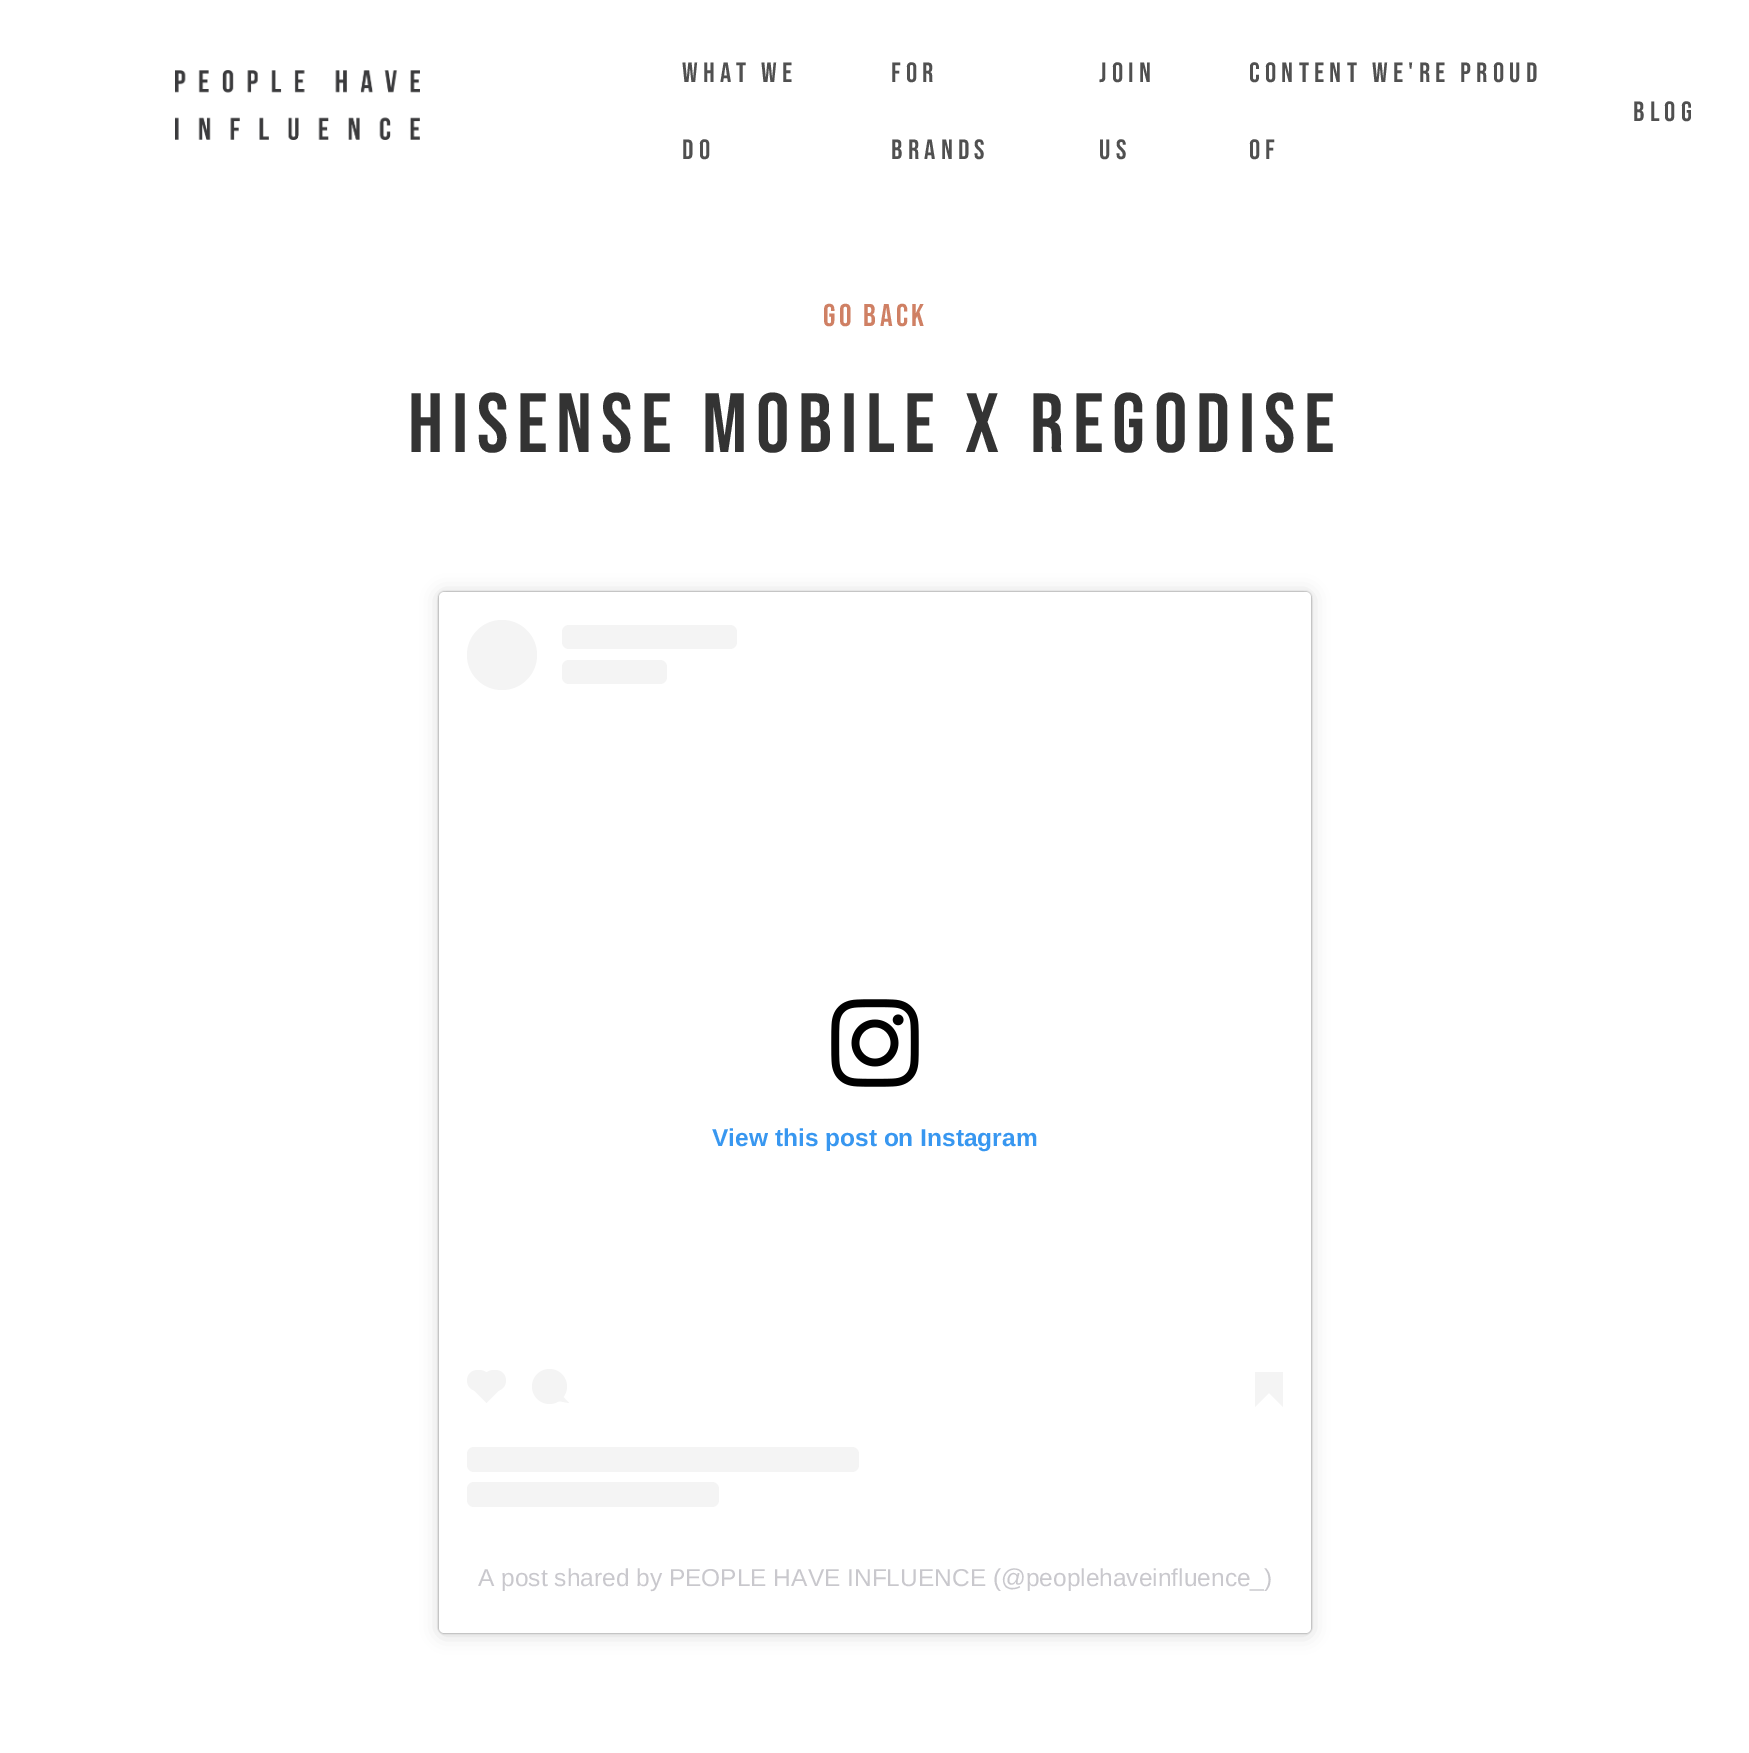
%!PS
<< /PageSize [1749 1753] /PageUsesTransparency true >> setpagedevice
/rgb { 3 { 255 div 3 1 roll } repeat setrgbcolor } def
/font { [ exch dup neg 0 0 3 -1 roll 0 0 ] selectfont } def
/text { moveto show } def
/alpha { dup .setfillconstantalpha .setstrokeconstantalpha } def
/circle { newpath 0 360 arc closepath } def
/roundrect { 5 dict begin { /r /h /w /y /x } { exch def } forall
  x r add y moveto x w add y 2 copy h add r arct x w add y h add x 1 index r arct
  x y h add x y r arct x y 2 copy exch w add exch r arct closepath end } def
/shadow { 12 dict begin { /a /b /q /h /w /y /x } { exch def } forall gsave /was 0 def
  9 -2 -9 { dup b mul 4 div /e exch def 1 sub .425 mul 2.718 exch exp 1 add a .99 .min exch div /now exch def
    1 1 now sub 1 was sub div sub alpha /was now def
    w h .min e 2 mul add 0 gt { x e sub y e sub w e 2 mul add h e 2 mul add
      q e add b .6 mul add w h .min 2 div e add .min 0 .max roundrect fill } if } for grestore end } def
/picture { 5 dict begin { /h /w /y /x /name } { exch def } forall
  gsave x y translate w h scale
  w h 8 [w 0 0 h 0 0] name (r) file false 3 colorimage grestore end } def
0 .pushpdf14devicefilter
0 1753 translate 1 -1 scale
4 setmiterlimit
255 255 255 rgb
0 0 1749 1753 rectfill
(img_01.rgb) 175 70 245 70 picture
0 0 0 rgb
439 593 872 1042 5 9 0.15 shadow
439 592 872 1041 5 1 0.5 shadow
255 255 255 rgb
439 592 872 1041 5 roundrect fill
244 244 244 rgb
502 655 35 circle fill
562 625 175 24 7 roundrect fill
562 660 105 24 7 roundrect fill
(img_02.rgb) 831 999 88 88 picture
467 1370 23 21 10.5 roundrect fill
471 1387.5 moveto 15.5 -15.5 rlineto 15.5 15.5 rlineto -15.5 15.5 rlineto closepath fill
483 1370 23 21 10.5 roundrect fill
549.5 1386.5 17.5 circle fill
558 1401 moveto 3.5 -6 rlineto 7.5 8 rlineto closepath fill
1255 1372 28 21 rectfill
1255 1393 moveto 14 0 rlineto -14 14 rlineto closepath fill
1269 1393 moveto 14 0 rlineto 0 14 rlineto closepath fill
467 1447 392 25 7 roundrect fill
467 1482 252 25 7 roundrect fill
/BebasNeue-Regular 28 font
80 80 80 rgb
682 82 moveto 5.25 0 (what we) ashow
682 159 moveto 5.25 0 (do) ashow
891 82 moveto 5.25 0 (For) ashow
891 159 moveto 5.25 0 (Brands) ashow
1099 82 moveto 5.25 0 (Join) ashow
1099 159 moveto 5.25 0 (us) ashow
1249 82 moveto 5.25 0 (Content we're proud) ashow
1249 159 moveto 5.25 0 (of) ashow
1633 121 moveto 5.25 0 (Blog) ashow
/BebasNeue-Regular 31.5 font
207 128 100 rgb
823 326 moveto 3.5 0 (Go back) ashow
/BebasNeue-Regular 84 font
51 51 51 rgb
408 452 moveto 8.75 0 (Hisense Mobile x RegoDise) ashow
/LiberationSans-Bold 24.5 font
56 151 240 rgb
(View this post on Instagram) 712 1146 text
/LiberationSans-Regular 24.5 font
201 200 205 rgb
(A post shared by PEOPLE HAVE INFLUENCE \(@peoplehaveinfluence_\)) 478 1586 text
.poppdf14devicefilter showpage
